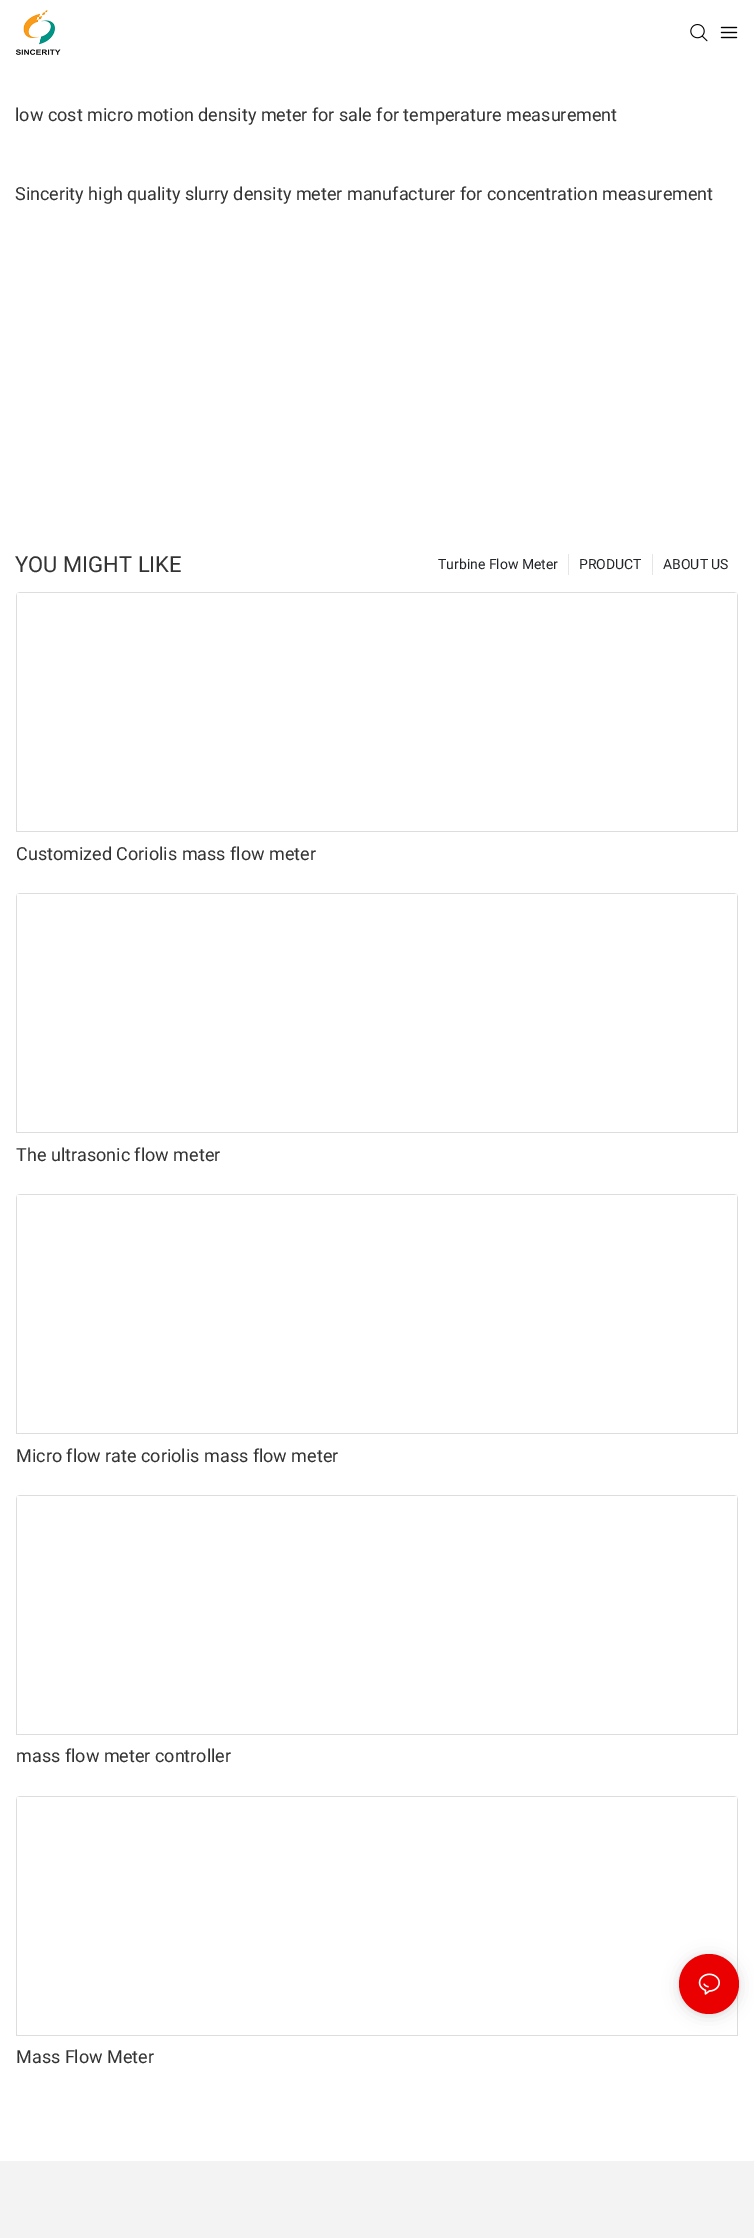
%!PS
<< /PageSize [754 2238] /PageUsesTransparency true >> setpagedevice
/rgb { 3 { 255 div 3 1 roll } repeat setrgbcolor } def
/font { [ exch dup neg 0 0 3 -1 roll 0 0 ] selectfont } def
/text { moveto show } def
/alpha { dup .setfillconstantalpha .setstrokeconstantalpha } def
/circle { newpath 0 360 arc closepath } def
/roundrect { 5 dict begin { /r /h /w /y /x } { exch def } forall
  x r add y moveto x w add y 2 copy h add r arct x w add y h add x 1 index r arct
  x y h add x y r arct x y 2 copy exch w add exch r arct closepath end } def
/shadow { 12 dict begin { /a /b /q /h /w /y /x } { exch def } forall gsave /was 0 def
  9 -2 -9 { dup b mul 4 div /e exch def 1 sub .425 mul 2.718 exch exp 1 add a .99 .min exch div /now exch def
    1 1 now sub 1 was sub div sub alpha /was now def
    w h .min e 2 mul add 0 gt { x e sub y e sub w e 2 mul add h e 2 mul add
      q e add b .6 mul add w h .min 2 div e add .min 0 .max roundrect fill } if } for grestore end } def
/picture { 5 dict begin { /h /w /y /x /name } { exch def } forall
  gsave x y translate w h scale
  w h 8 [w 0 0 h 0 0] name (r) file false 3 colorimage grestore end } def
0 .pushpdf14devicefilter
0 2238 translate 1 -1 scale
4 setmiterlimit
255 255 255 rgb
0 0 754 2238 rectfill
(img_01.rgb) 15 10 46 45 picture
(img_02.rgb) 690 24 18 18 picture
(img_03.rgb) 720 26 18 13 picture
230 230 230 rgb
568 554 1 21 rectfill
652 554 1 21 rectfill
221 221 221 rgb
16 596 moveto 0 236 rlineto 722 0 rlineto 0 -236 rlineto -1 -3 rlineto 0 238 rlineto -720 0 rlineto 0 -238 rlineto closepath 20 592 moveto -3 1 rlineto 720 0 rlineto -3 -1 rlineto closepath eofill
16 897 moveto 0 236 rlineto 722 0 rlineto 0 -236 rlineto -1 -3 rlineto 0 238 rlineto -720 0 rlineto 0 -238 rlineto closepath 20 893 moveto -3 1 rlineto 720 0 rlineto -3 -1 rlineto closepath eofill
16 1198 moveto 0 236 rlineto 722 0 rlineto 0 -236 rlineto -1 -3 rlineto 0 238 rlineto -720 0 rlineto 0 -238 rlineto closepath 20 1194 moveto -3 1 rlineto 720 0 rlineto -3 -1 rlineto closepath eofill
16 1499 moveto 0 236 rlineto 722 0 rlineto 0 -236 rlineto -1 -3 rlineto 0 238 rlineto -720 0 rlineto 0 -238 rlineto closepath 20 1495 moveto -3 1 rlineto 720 0 rlineto -3 -1 rlineto closepath eofill
16 1800 moveto 0 236 rlineto 722 0 rlineto 0 -236 rlineto -1 -3 rlineto 0 238 rlineto -720 0 rlineto 0 -238 rlineto closepath 20 1796 moveto -3 1 rlineto 720 0 rlineto -3 -1 rlineto closepath eofill
243 243 243 rgb
0 2161 754 77 rectfill
0 0 0 rgb
679 1956 60 60 30 8 0.12 shadow
679 1955 60 60 30 2 0.06 shadow
234 0 1 rgb
709 1984 30 circle fill
(img_04.rgb) 698 1973 22 22 picture
/Roboto-Regular 18 font
51 51 51 rgb
(low cost micro motion density meter for sale for temperature measurement) 15 121 text
(Sincerity high quality slurry density meter manufacturer for concentration measurement) 15 200 text
/Roboto-Regular 22 font
(YOU MIGHT LIKE) 15 572 text
/Roboto-Regular 14 font
33 37 41 rgb
(Turbine Flow Meter) 438 569 text
(PRODUCT) 579 569 text
(ABOUT US) 663 569 text
/Roboto-Regular 18 font
51 51 51 rgb
(Customized Coriolis mass flow meter) 16 860 text
(The ultrasonic flow meter) 16 1161 text
(Micro flow rate coriolis mass flow meter) 16 1462 text
(mass flow meter controller) 16 1762 text
(Mass Flow Meter) 16 2063 text
.poppdf14devicefilter showpage
